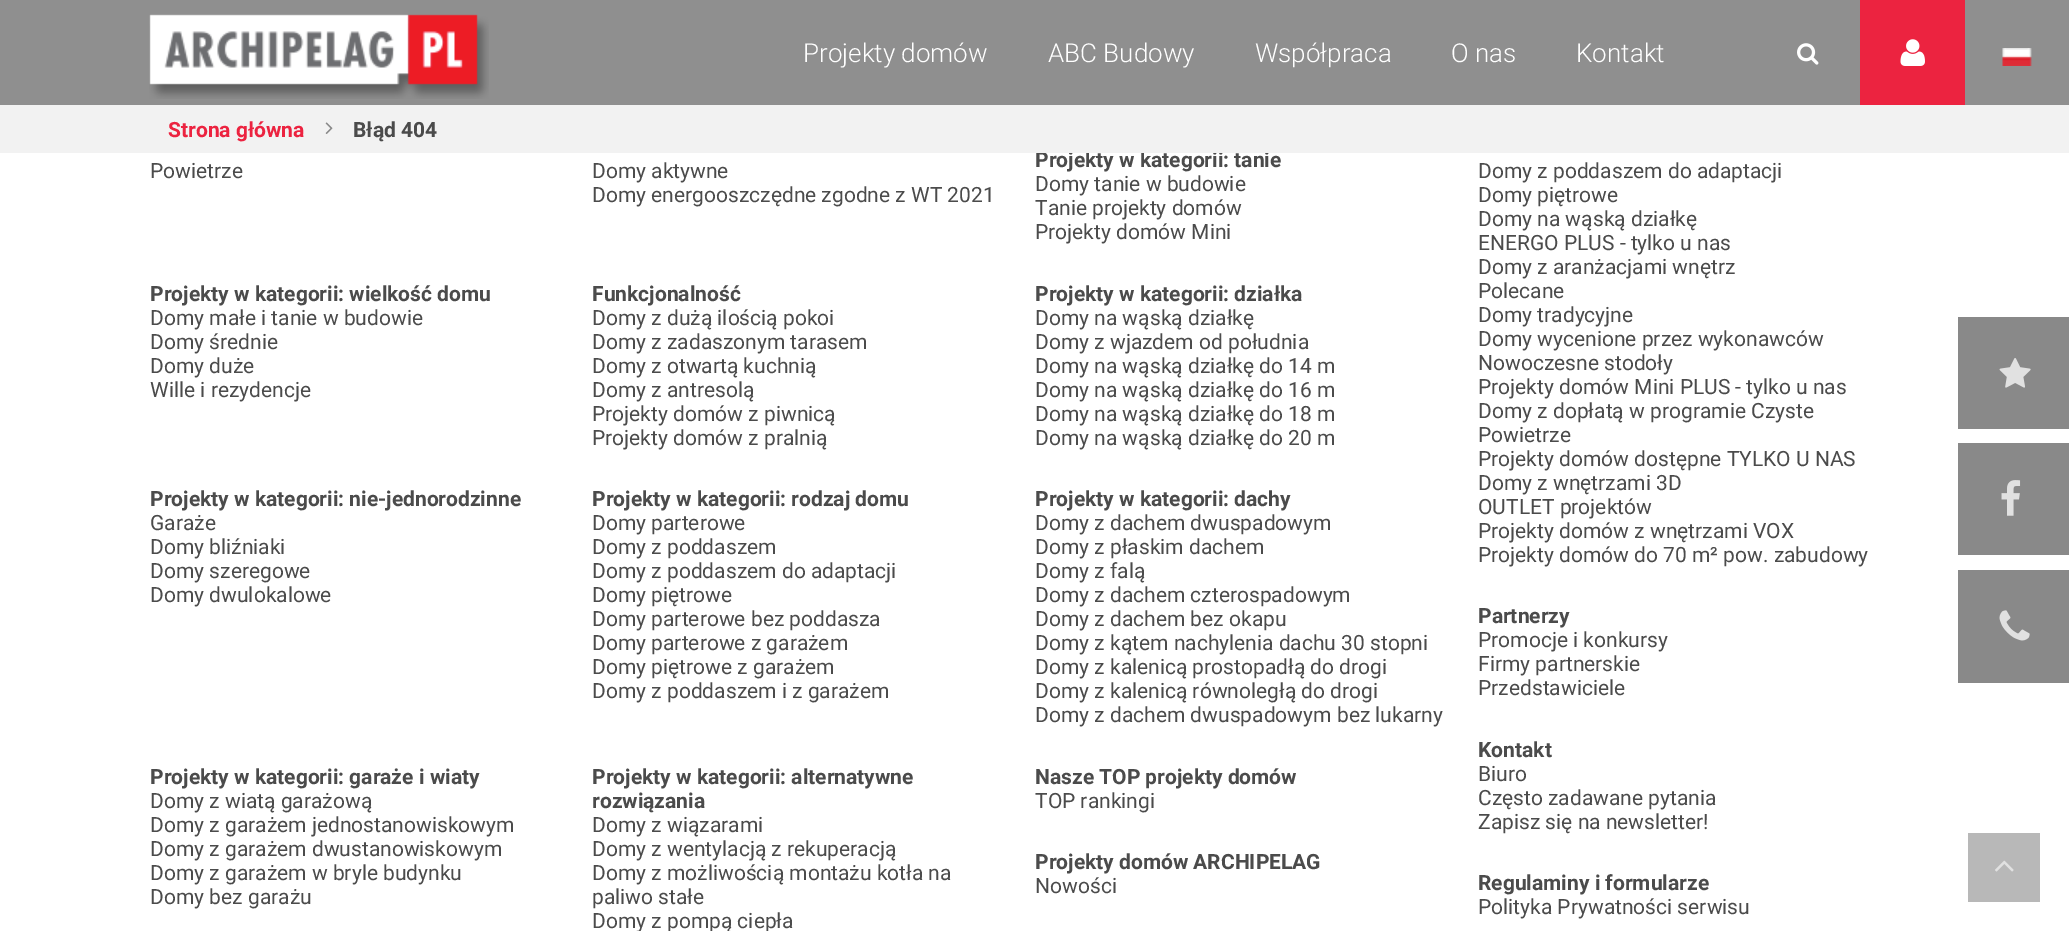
%!PS
<< /PageSize [2069 931] >> setpagedevice
/rgb { 3 { 255 div 3 1 roll } repeat setrgbcolor } def
/font { [ exch dup neg 0 0 3 -1 roll 0 0 ] selectfont } def
/text { moveto show } def
/picture { 5 dict begin { /h /w /y /x /name } { exch def } forall
  gsave x y translate w h scale
  w h 8 [w 0 0 h 0 0] name (r) file false 3 colorimage grestore end } def
0 931 translate 1 -1 scale
4 setmiterlimit
255 255 255 rgb
0 0 2069 931 rectfill
143 143 143 rgb
0 0 2069 105 rectfill
(img_01.rgb) 149 14 340 85 picture
(img_02.rgb) 1797 43 22 22 picture
236 35 64 rgb
1860 0 105 105 rectfill
(img_03.rgb) 1900 39 25 27 picture
(img_04.rgb) 2002 48 30 18 picture
137 137 137 rgb
1958 317 111 112 rectfill
(img_06.rgb) 1999 358 32 30 picture
1958 443 111 112 rectfill
(img_07.rgb) 2001 480 20 36 picture
1958 570 111 113 rectfill
(img_08.rgb) 1999 610 31 31 picture
184 184 184 rgb
1968 833 72 69 rectfill
(img_09.rgb) 1995 860 19 12 picture
/Roboto-Light 26 font
255 255 255 rgb
(Projekty domów) 803 62 text
(ABC Budowy) 1048 62 text
(Współpraca) 1255 62 text
(O nas) 1451 62 text
(Kontakt) 1576 62 text
/Roboto-Regular 21 font
75 75 75 rgb
(Powietrze) 150 178 text
(Domy aktywne) 592 178 text
(Domy energooszczędne zgodne z WT 2021) 592 202 text
/Roboto-Bold 21 font
(Projekty w kategorii: tanie) 1035 167 text
242 242 242 rgb
0 105 2069 48 rectfill
75 75 75 rgb
(Błąd 404) 353 137 text
(img_05.rgb) 325 122 8 12 picture
236 35 64 rgb
(Strona główna) 168 137 text
/Roboto-Regular 21 font
75 75 75 rgb
(Domy tanie w budowie) 1035 191 text
(Tanie projekty domów) 1035 215 text
(Projekty domów Mini) 1035 239 text
/Roboto-Bold 21 font
(Projekty w kategorii: wielkość domu) 150 301 text
/Roboto-Regular 21 font
(Domy małe i tanie w budowie) 150 325 text
(Domy średnie) 150 349 text
(Domy duże) 150 373 text
(Wille i rezydencje) 150 397 text
/Roboto-Bold 21 font
(Funkcjonalność) 592 301 text
/Roboto-Regular 21 font
(Domy z dużą ilością pokoi) 592 325 text
(Domy z zadaszonym tarasem) 592 349 text
(Domy z otwartą kuchnią) 592 373 text
(Domy z antresolą) 592 397 text
(Projekty domów z piwnicą) 592 421 text
(Projekty domów z pralnią) 592 445 text
/Roboto-Bold 21 font
(Projekty w kategorii: działka) 1035 301 text
/Roboto-Regular 21 font
(Domy na wąską działkę) 1035 325 text
(Domy z wjazdem od południa) 1035 349 text
(Domy na wąską działkę do 14 m) 1035 373 text
(Domy na wąską działkę do 16 m) 1035 397 text
(Domy na wąską działkę do 18 m) 1035 421 text
(Domy na wąską działkę do 20 m) 1035 445 text
/Roboto-Bold 21 font
(Projekty w kategorii: nie-jednorodzinne) 150 506 text
/Roboto-Regular 21 font
(Garaże) 150 530 text
(Domy bliźniaki) 150 554 text
(Domy szeregowe) 150 578 text
(Domy dwulokalowe) 150 602 text
/Roboto-Bold 21 font
(Projekty w kategorii: rodzaj domu) 592 506 text
/Roboto-Regular 21 font
(Domy parterowe) 592 530 text
(Domy z poddaszem) 592 554 text
(Domy z poddaszem do adaptacji) 592 578 text
(Domy piętrowe) 592 602 text
(Domy parterowe bez poddasza) 592 626 text
(Domy parterowe z garażem) 592 650 text
(Domy piętrowe z garażem) 592 674 text
(Domy z poddaszem i z garażem) 592 698 text
/Roboto-Bold 21 font
(Projekty w kategorii: dachy) 1035 506 text
/Roboto-Regular 21 font
(Domy z dachem dwuspadowym) 1035 530 text
(Domy z płaskim dachem) 1035 554 text
(Domy z falą) 1035 578 text
(Domy z dachem czterospadowym) 1035 602 text
(Domy z dachem bez okapu) 1035 626 text
(Domy z kątem nachylenia dachu 30 stopni) 1035 650 text
(Domy z kalenicą prostopadłą do drogi) 1035 674 text
(Domy z kalenicą równoległą do drogi) 1035 698 text
(Domy z dachem dwuspadowym bez lukarny) 1035 722 text
/Roboto-Bold 21 font
(Projekty w kategorii: garaże i wiaty) 150 784 text
/Roboto-Regular 21 font
(Domy z wiatą garażową) 150 808 text
(Domy z garażem jednostanowiskowym) 150 832 text
(Domy z garażem dwustanowiskowym) 150 856 text
(Domy z garażem w bryle budynku) 150 880 text
(Domy bez garażu) 150 904 text
/Roboto-Bold 21 font
(Projekty w kategorii: alternatywne) 592 784 text
(rozwiązania) 592 808 text
/Roboto-Regular 21 font
(Domy z wiązarami) 592 832 text
(Domy z wentylacją z rekuperacją) 592 856 text
(Domy z możliwością montażu kotła na) 592 880 text
(paliwo stałe) 592 904 text
(Domy z pompą ciepła) 592 928 text
/Roboto-Bold 21 font
(Nasze TOP projekty domów) 1035 784 text
/Roboto-Regular 21 font
(TOP rankingi) 1035 808 text
/Roboto-Bold 21 font
(Projekty domów ARCHIPELAG) 1035 869 text
/Roboto-Regular 21 font
(Nowości) 1035 893 text
(Domy z poddaszem do adaptacji) 1478 178 text
(Domy piętrowe) 1478 202 text
(Domy na wąską działkę) 1478 226 text
(ENERGO PLUS - tylko u nas) 1478 250 text
(Domy z aranżacjami wnętrz) 1478 274 text
(Polecane) 1478 298 text
(Domy tradycyjne) 1478 322 text
(Domy wycenione przez wykonawców) 1478 346 text
(Nowoczesne stodoły) 1478 370 text
(Projekty domów Mini PLUS - tylko u nas) 1478 394 text
(Domy z dopłatą w programie Czyste) 1478 418 text
(Powietrze) 1478 442 text
(Projekty domów dostępne TYLKO U NAS) 1478 466 text
(Domy z wnętrzami 3D) 1478 490 text
(OUTLET projektów) 1478 514 text
(Projekty domów z wnętrzami VOX) 1478 538 text
(Projekty domów do 70 m² pow. zabudowy) 1478 562 text
/Roboto-Bold 21 font
(Partnerzy) 1478 623 text
/Roboto-Regular 21 font
(Promocje i konkursy) 1478 647 text
(Firmy partnerskie) 1478 671 text
(Przedstawiciele) 1478 695 text
/Roboto-Bold 21 font
(Kontakt) 1478 757 text
/Roboto-Regular 21 font
(Biuro) 1478 781 text
(Często zadawane pytania) 1478 805 text
(Zapisz się na newsletter!) 1478 829 text
/Roboto-Bold 21 font
(Regulaminy i formularze) 1478 890 text
/Roboto-Regular 21 font
(Polityka Prywatności serwisu) 1478 914 text
showpage
